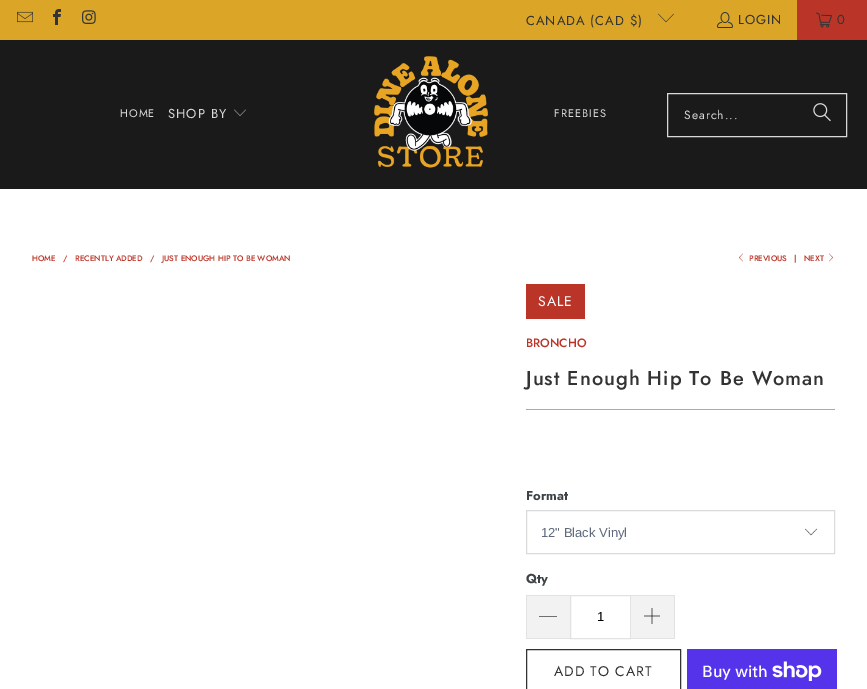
%!PS
<< /PageSize [867 689] >> setpagedevice
/rgb { 3 { 255 div 3 1 roll } repeat setrgbcolor } def
/font { [ exch dup neg 0 0 3 -1 roll 0 0 ] selectfont } def
/text { moveto show } def
/picture { 5 dict begin { /h /w /y /x /name } { exch def } forall
  gsave x y translate w h scale
  w h 8 [w 0 0 h 0 0] name (r) file false 3 colorimage grestore end } def
0 689 translate 1 -1 scale
4 setmiterlimit
255 255 255 rgb
0 0 867 689 rectfill
219 166 40 rgb
0 0 797 40 rectfill
(img_01.rgb) 17 11 16 12 picture
(img_02.rgb) 53 9 8 16 picture
(img_03.rgb) 82 10 14 14 picture
(img_04.rgb) 658 13 16 10 picture
(img_05.rgb) 717 12 16 16 picture
187 52 40 rgb
797 0 70 40 rectfill
(img_06.rgb) 816 12 16 16 picture
26 26 26 rgb
0 40 867 149 rectfill
(img_07.rgb) 234 109 12 7 picture
(img_08.rgb) 374 56 114 112 picture
217 217 217 rgb
667.5 93.5 179 43 rectstroke
(img_09.rgb) 813 103 18 19 picture
187 52 40 rgb
743 261.5 moveto -4 -4 rlineto 4 -4 rlineto -3.5 4 rlineto closepath fill
829 261.5 moveto 3.5 -4 rlineto -3.5 -4 rlineto 4 4 rlineto closepath fill
526 284 59 35 rectfill
170 170 170 rgb
526 409 309 1 rectfill
(img_10.rgb) 805 528 12 8 picture
217 219 220 rgb
526.5 510.5 308 43 rectstroke
242 242 242 rgb
527 596 43 42 rectfill
226 226 226 rgb
526 595 44 1 rectfill
526 638 44 1 rectfill
526 595 1 44 rectfill
0 0 0 rgb
539 616 moveto 18 0 rlineto 0 0.5 rlineto -18 0 rlineto closepath fill
226 226 226 rgb
570.5 595.5 60 43 rectstroke
242 242 242 rgb
631 596 43 42 rectfill
226 226 226 rgb
631 595 44 1 rectfill
674 595 1 44 rectfill
631 638 44 1 rectfill
(img_11.rgb) 644 608 16 16 picture
51 51 51 rgb
526.5 649.5 154 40 rectstroke
84 51 235 rgb
687 649 150 40 rectfill
(img_12.rgb) 772 661 50 20 picture
/Jost-Regular 13 font
51 51 51 rgb
526 25 moveto 1 0 (CANADA \(CAD $\)) ashow
738 24 moveto 1 0 (LOGIN) ashow
837 24 moveto 1 0 (0) ashow
/Jost-Regular 11 font
217 217 217 rgb
120 117 moveto 1 0 (HOME) ashow
/Jost-Regular 13 font
168 118 moveto 1 0 (SHOP BY) ashow
/Jost-Regular 11 font
554 117 moveto 1 0 (FREEBIES) ashow
/Jost-Regular 12 font
684 119 moveto 1 0 (Search...) ashow
/Jost-Medium 8 font
187 52 40 rgb
(HOME) 32 261 text
(/) 63 261 text
(RECENTLY ADDED) 75 261 text
(/) 150 261 text
(JUST ENOUGH HIP TO BE WOMAN) 162 261 text
(PREVIOUS) 749 261 text
(|) 794 261 text
(NEXT) 804 261 text
/Jost-Regular 14 font
255 255 255 rgb
538 306 moveto 1 0 (SALE) ashow
/Jost-Medium 12 font
187 52 40 rgb
(BRONCHO) 526 347 text
/Jost-Medium 20 font
51 51 51 rgb
526 385 moveto 1 0 (Just Enough Hip To Be Woman) ashow
/Jost-Bold 13 font
61 66 70 rgb
(Format) 526 500 text
/LiberationSans-Regular 13 font
95 106 125 rgb
(12" Black Vinyl) 541 537 text
/Jost-Bold 13 font
61 66 70 rgb
(Qty) 526 583 text
/LiberationSans-Regular 13 font
0 0 0 rgb
(1) 597 621 text
/Jost-Regular 14 font
51 51 51 rgb
554 676 moveto 1 0 (ADD TO CART) ashow
/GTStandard-Medium 16 font
255 255 255 rgb
(Buy with) 702 677 text
showpage
